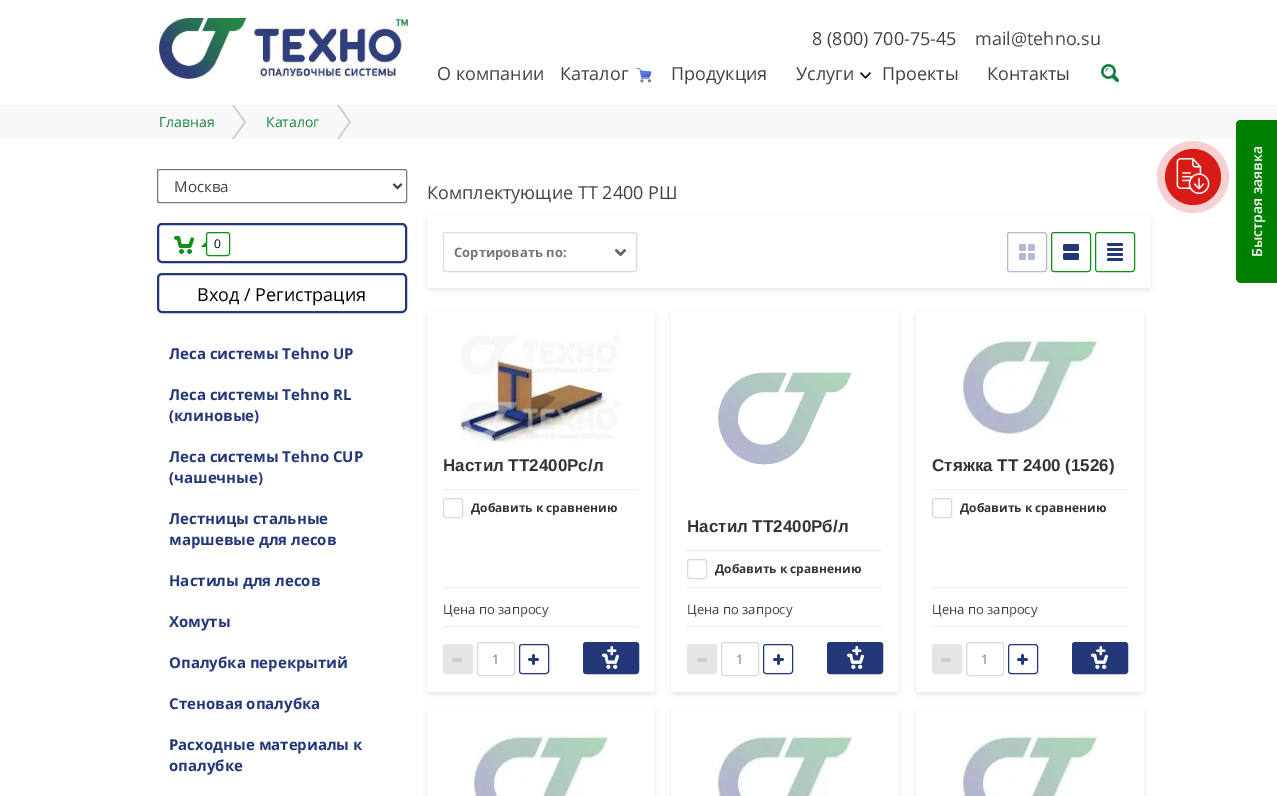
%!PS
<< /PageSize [1277 796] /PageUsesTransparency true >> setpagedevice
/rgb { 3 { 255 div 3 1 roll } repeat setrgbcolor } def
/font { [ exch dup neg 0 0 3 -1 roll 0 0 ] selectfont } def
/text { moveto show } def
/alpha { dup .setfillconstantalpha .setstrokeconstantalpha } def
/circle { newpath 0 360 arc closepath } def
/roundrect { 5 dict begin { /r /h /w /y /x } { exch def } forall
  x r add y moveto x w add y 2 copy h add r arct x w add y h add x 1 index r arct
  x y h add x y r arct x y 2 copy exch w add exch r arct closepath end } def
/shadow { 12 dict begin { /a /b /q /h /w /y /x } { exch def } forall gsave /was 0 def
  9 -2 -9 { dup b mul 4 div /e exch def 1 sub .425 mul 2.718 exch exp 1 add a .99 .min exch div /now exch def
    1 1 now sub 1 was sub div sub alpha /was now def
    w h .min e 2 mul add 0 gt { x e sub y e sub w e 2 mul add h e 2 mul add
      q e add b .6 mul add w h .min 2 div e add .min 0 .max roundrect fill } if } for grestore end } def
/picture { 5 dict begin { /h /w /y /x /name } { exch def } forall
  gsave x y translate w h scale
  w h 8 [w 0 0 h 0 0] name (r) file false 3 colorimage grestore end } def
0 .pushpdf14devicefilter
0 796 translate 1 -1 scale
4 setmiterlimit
255 255 255 rgb
0 0 1277 796 rectfill
(img_01.rgb) 159 18 249 61 picture
(img_02.rgb) 636 67 16 16 picture
(img_03.rgb) 860 72 11 7 picture
(img_04.rgb) 1101 64 18 18 picture
248 248 248 rgb
0 105 1277 34 rectfill
206 206 206 rgb
234 105 moveto 12 17 rlineto -12 17 rlineto -2 0 rlineto 12 -17 rlineto -12 -17 rlineto closepath eofill
339 105 moveto 12 17 rlineto -12 17 rlineto -2 0 rlineto 12 -17 rlineto -12 -17 rlineto closepath eofill
118 118 118 rgb
157.5 169.5 249 33 1.5 roundrect stroke
66 66 66 rgb
2 setlinewidth
393.5 184 moveto 4 4 rlineto 4 -4 rlineto stroke
36 56 121 rgb
158 224 248 38 4 roundrect stroke
(img_05.rgb) 174 236 20 18 picture
12 144 22 rgb
1 setlinewidth
206.5 232.5 23 23 2.5 roundrect stroke
207 241 moveto 0 6 rlineto -3 -3 rlineto closepath fill
207 247 moveto -6 0 rlineto 3 -3 rlineto closepath fill
207 246 moveto -4 0 rlineto 2 -2 rlineto closepath fill
36 56 121 rgb
2 setlinewidth
158 274 248 38 4 roundrect stroke
0 0 0 rgb
427 218 724 72 3 2.5 0.1 shadow
255 255 255 rgb
427 216 724 72 3 roundrect fill
217 217 217 rgb
1 setlinewidth
443.5 232.5 193 39 2.5 roundrect stroke
(img_06.rgb) 615 249 11 7 picture
178 185 208 rgb
1007.5 232.5 39 39 2.5 roundrect stroke
1019 244 7 7 2 roundrect fill
1028 244 7 7 2 roundrect fill
1019 253 7 7 2 roundrect fill
1028 253 7 7 2 roundrect fill
12 144 22 rgb
1051.5 232.5 39 39 2.5 roundrect stroke
36 56 121 rgb
1063 244 16 7 2 roundrect fill
1063 253 16 7 2 roundrect fill
12 144 22 rgb
1095.5 232.5 39 39 2.5 roundrect stroke
36 56 121 rgb
1107 243 16 3 1.5 roundrect fill
1107 248 16 3 1.5 roundrect fill
1107 253 16 3 1.5 roundrect fill
1107 258 16 3 1.5 roundrect fill
0 0 0 rgb
427 314 228 380 3 2.5 0.1 shadow
255 255 255 rgb
427 312 228 380 3 roundrect fill
(img_07.rgb) 459 334 162 110 picture
229 229 229 rgb
[1 1] 0 setdash
443 489.5 moveto 196 0 rlineto stroke
217 217 217 rgb
[] 0 setdash
443.5 498.5 19 19 2.5 roundrect stroke
229 229 229 rgb
[1 1] 0 setdash
443 587.5 moveto 196 0 rlineto stroke
443 626.5 moveto 196 0 rlineto stroke
443.5 644.5 29 29 2.5 roundrect gsave fill grestore
[] 0 setdash
stroke
206 206 206 rgb
452 658 10 4 rectfill
217 217 217 rgb
477.5 642.5 37 33 2.5 roundrect stroke
36 56 121 rgb
519.5 644.5 29 29 2.5 roundrect stroke
(img_08.rgb) 528 654 11 11 picture
583.5 642.5 55 31 2.5 roundrect gsave fill grestore
stroke
(img_09.rgb) 602 646 17 23 picture
0 0 0 rgb
671 314 228 380 3 2.5 0.1 shadow
255 255 255 rgb
671 312 228 380 3 roundrect fill
(img_10.rgb) 718 372 134 93 picture
229 229 229 rgb
[1 1] 0 setdash
687 550.5 moveto 196 0 rlineto stroke
217 217 217 rgb
[] 0 setdash
687.5 559.5 19 19 2.5 roundrect stroke
229 229 229 rgb
[1 1] 0 setdash
687 587.5 moveto 196 0 rlineto stroke
687 626.5 moveto 196 0 rlineto stroke
687.5 644.5 29 29 2.5 roundrect gsave fill grestore
[] 0 setdash
stroke
206 206 206 rgb
697 658 10 4 rectfill
217 217 217 rgb
721.5 642.5 37 33 2.5 roundrect stroke
36 56 121 rgb
763.5 644.5 29 29 2.5 roundrect stroke
(img_08.rgb) 773 654 11 11 picture
827.5 642.5 55 31 2.5 roundrect gsave fill grestore
stroke
(img_09.rgb) 847 646 17 23 picture
0 0 0 rgb
916 314 228 380 3 2.5 0.1 shadow
255 255 255 rgb
916 312 228 380 3 roundrect fill
(img_11.rgb) 962 336 136 102 picture
229 229 229 rgb
[1 1] 0 setdash
932 489.5 moveto 196 0 rlineto stroke
217 217 217 rgb
[] 0 setdash
932.5 498.5 19 19 2.5 roundrect stroke
229 229 229 rgb
[1 1] 0 setdash
932 587.5 moveto 196 0 rlineto stroke
932 626.5 moveto 196 0 rlineto stroke
932.5 644.5 29 29 2.5 roundrect gsave fill grestore
[] 0 setdash
stroke
206 206 206 rgb
941 658 10 4 rectfill
217 217 217 rgb
966.5 642.5 37 33 2.5 roundrect stroke
36 56 121 rgb
1008.5 644.5 29 29 2.5 roundrect stroke
(img_08.rgb) 1017 654 11 11 picture
1072.5 642.5 55 31 2.5 roundrect gsave fill grestore
stroke
(img_09.rgb) 1091 646 17 23 picture
gsave
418 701 moveto 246 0 rlineto 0 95 rlineto -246 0 rlineto closepath 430 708 moveto 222 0 rlineto 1.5 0 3 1.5 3 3 rcurveto 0 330 rlineto 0 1.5 -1.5 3 -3 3 rcurveto -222 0 rlineto -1.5 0 -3 -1.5 -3 -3 rcurveto 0 -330 rlineto 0 -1.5 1.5 -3 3 -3 rcurveto closepath eoclip newpath
0 0 0 rgb
427 710 228 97 3 2.5 0.1 shadow
grestore
(img_12.rgb) 473 732 136 64 picture
gsave
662 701 moveto 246 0 rlineto 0 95 rlineto -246 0 rlineto closepath 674 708 moveto 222 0 rlineto 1.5 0 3 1.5 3 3 rcurveto 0 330 rlineto 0 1.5 -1.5 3 -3 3 rcurveto -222 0 rlineto -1.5 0 -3 -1.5 -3 -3 rcurveto 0 -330 rlineto 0 -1.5 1.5 -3 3 -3 rcurveto closepath eoclip newpath
0 0 0 rgb
671 710 228 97 3 2.5 0.1 shadow
grestore
(img_13.rgb) 717 732 136 64 picture
gsave
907 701 moveto 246 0 rlineto 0 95 rlineto -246 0 rlineto closepath 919 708 moveto 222 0 rlineto 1.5 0 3 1.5 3 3 rcurveto 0 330 rlineto 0 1.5 -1.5 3 -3 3 rcurveto -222 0 rlineto -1.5 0 -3 -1.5 -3 -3 rcurveto 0 -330 rlineto 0 -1.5 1.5 -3 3 -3 rcurveto closepath eoclip newpath
0 0 0 rgb
916 710 228 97 3 2.5 0.1 shadow
grestore
(img_12.rgb) 962 732 136 64 picture
247 209 209 rgb
8 setlinewidth
1193 177 32 circle stroke
216 27 23 rgb
1193 177 28 circle fill
(img_14.rgb) 1176 158 34 36 picture
0 128 0 rgb
1277 283 moveto -36 0 rlineto -3 0 -5 -3 -5 -5 rcurveto 0 -153 rlineto 0 -3 2 -5 5 -5 rcurveto 36 0 rlineto closepath fill
1 setlinewidth
1276.5 282 moveto -35.5 0 rlineto -2.5 0 -4.5 -2 -4.5 -4.5 rcurveto 0 -152.5 rlineto 0 -2.5 2 -4.5 4.5 -4.5 rcurveto 35.5 0 rlineto closepath stroke
/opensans-Regular 18 font
66 66 66 rgb
(8 \(800\) 700-75-45) 812 45 text
74 74 74 rgb
(mail@tehno.su) 975 45 text
66 66 66 rgb
(О компании) 437 80 text
(Каталог) 560 80 text
(Продукция) 671 80 text
(Услуги) 796 80 text
(Проекты) 882 80 text
(Контакты) 987 80 text
/opensans-Regular 14 font
25 131 65 rgb
(Главная) 159 127 text
(Каталог) 266 127 text
/opensans-Regular 15 font
66 66 66 rgb
(Москва) 174 192 text
/opensans-Regular 12 font
0 0 0 rgb
(0) 214 248 text
/opensans-Regular 18 font
(Вход / Регистрация) 197 301 text
/opensans-Bold 15 font
36 56 121 rgb
(Леса системы Tehno UP) 169 359 text
(Леса системы Tehno RL) 169 400 text
(\(клиновые\)) 169 421 text
(Леса системы Tehno CUP) 169 462 text
(\(чашечные\)) 169 483 text
(Лестницы стальные) 169 524 text
(маршевые для лесов) 169 545 text
(Настилы для лесов) 169 586 text
(Хомуты) 169 627 text
(Опалубка перекрытий) 169 668 text
(Стеновая опалубка) 169 709 text
(Расходные материалы к) 169 750 text
(опалубке) 169 771 text
/opensans-Regular 18 font
66 66 66 rgb
(Комплектующие ТТ 2400 РШ) 427 199 text
/opensans-Bold 13 font
119 119 119 rgb
(Сортировать по:) 454 257 text
/LiberationSans-Bold 17 font
51 51 51 rgb
(Настил ТТ2400Рс/л) 443 471 text
/opensans-Bold 12 font
(Добавить к сравнению) 471 512 text
/opensans-Regular 13 font
66 66 66 rgb
(Цена по запросу) 443 614 text
119 119 119 rgb
(1) 492 664 text
/LiberationSans-Bold 17 font
51 51 51 rgb
(Настил ТТ2400Рб/л) 687 532 text
/opensans-Bold 12 font
(Добавить к сравнению) 715 573 text
/opensans-Regular 13 font
66 66 66 rgb
(Цена по запросу) 687 614 text
119 119 119 rgb
(1) 736 664 text
/LiberationSans-Bold 17 font
51 51 51 rgb
(Стяжка ТТ 2400 \(1526\)) 932 471 text
/opensans-Bold 12 font
(Добавить к сравнению) 960 512 text
/opensans-Regular 13 font
66 66 66 rgb
(Цена по запросу) 932 614 text
119 119 119 rgb
(1) 981 664 text
/OpenSans-SemiBold 14 font
255 255 255 rgb
gsave 1262 257 translate -90 rotate 0 0 moveto (Быстрая заявка) show grestore
.poppdf14devicefilter showpage
